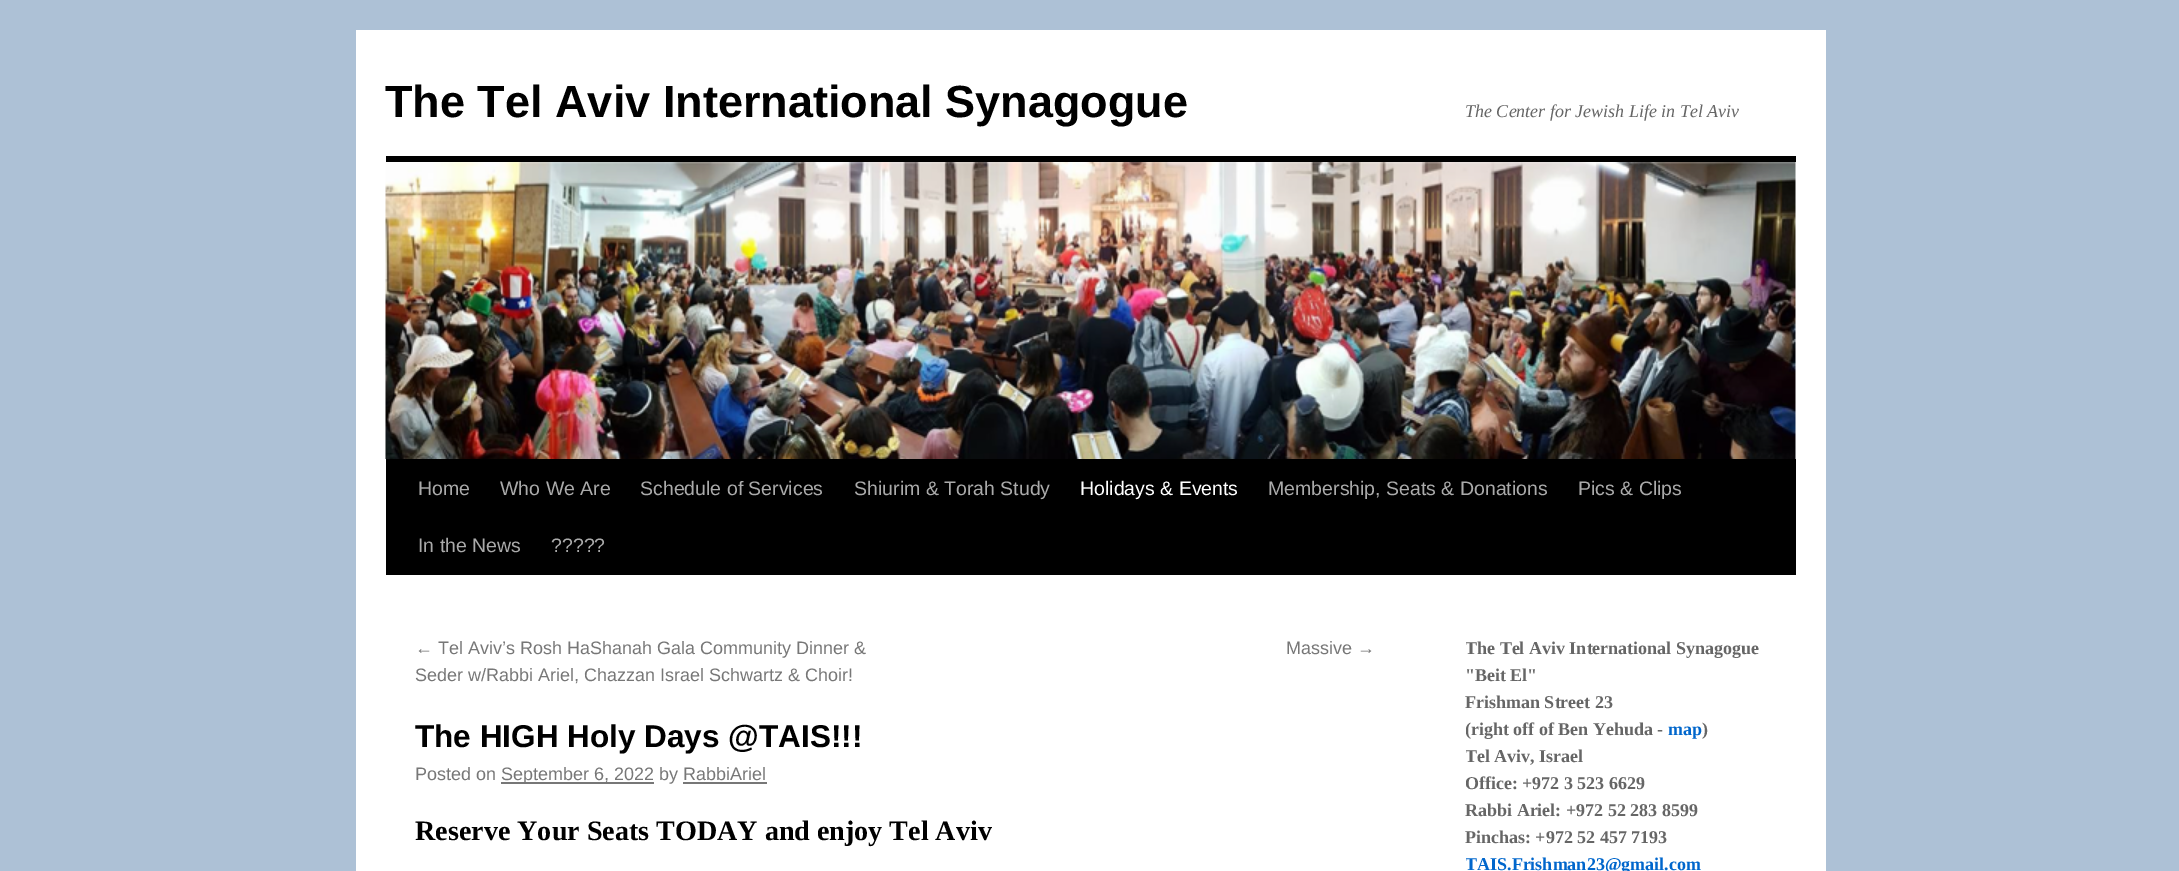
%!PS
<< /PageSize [2179 871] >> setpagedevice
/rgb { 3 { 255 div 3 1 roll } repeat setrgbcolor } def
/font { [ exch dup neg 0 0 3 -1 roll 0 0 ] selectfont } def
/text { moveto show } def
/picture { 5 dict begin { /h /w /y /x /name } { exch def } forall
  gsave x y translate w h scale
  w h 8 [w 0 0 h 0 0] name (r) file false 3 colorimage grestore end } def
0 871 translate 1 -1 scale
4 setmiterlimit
173 193 214 rgb
0 0 2179 871 rectfill
255 255 255 rgb
356 30 1470 841 rectfill
0 0 0 rgb
386 156 1410 6 rectfill
386 459 1410 116 rectfill
(img_01.rgb) 385 162 1411 297 picture
119 119 119 rgb
501 782 153 2 rectfill
683 782 84 2 rectfill
/LiberationSans-Bold 45 font
0 0 0 rgb
(The Tel Aviv International Synagogue) 385 117 text
/LiberationSerif-Italic 18 font
102 102 102 rgb
(The Center for Jewish Life in Tel Aviv) 1465 117 text
/LiberationSans-Regular 19.5 font
170 170 170 rgb
(Home) 418 495 text
(Who We Are) 500 495 text
(Schedule of Services) 640 495 text
(Shiurim & Torah Study) 854 495 text
255 255 255 rgb
(Holidays & Events) 1080 495 text
170 170 170 rgb
(Membership, Seats & Donations) 1268 495 text
(Pics & Clips) 1578 495 text
(In the News) 418 552 text
(?????) 551 552 text
/LiberationSans-Regular 18 font
119 119 119 rgb
(← Tel Aviv’s Rosh HaShanah Gala Community Dinner &) 415 654 text
(Seder w/Rabbi Ariel, Chazzan Israel Schwartz & Choir!) 415 681 text
(Massive →) 1286 654 text
/LiberationSans-Bold 31.5 font
0 0 0 rgb
(The HIGH Holy Days @TAIS!!!) 415 747 text
/LiberationSans-Regular 18 font
119 119 119 rgb
(Posted on) 415 780 text
(September 6, 2022 by RabbiAriel) 501 780 text
/LiberationSerif-Bold 28.1 font
0 0 0 rgb
(Reserve Your Seats TODAY and enjoy Tel Aviv) 415 840 text
gsave
1466 635 330 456 rectclip
/LiberationSerif-Bold 18 font
102 102 102 rgb
(The Tel Aviv International Synagogue) 1465 654 text
grestore
/LiberationSerif-Bold 18 font
102 102 102 rgb
("Beit El") 1465 681 text
(Frishman Street 23) 1465 708 text
gsave
1466 635 330 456 rectclip
(\(right off of Ben Yehuda -) 1465 735 text
grestore
0 102 204 rgb
(map) 1668 735 text
102 102 102 rgb
(\)) 1702 735 text
gsave
1466 635 330 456 rectclip
(Tel Aviv, Israel) 1465 762 text
(Office:) 1465 789 text
grestore
(+972 3 523 6629) 1522 789 text
(Rabbi Ariel: +972 52 283 8599) 1465 816 text
(Pinchas: +972 52 457 7193) 1465 843 text
gsave
1466 635 330 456 rectclip
0 102 204 rgb
(TAIS.Frishman23@gmail.com) 1465 870 text
grestore
showpage
